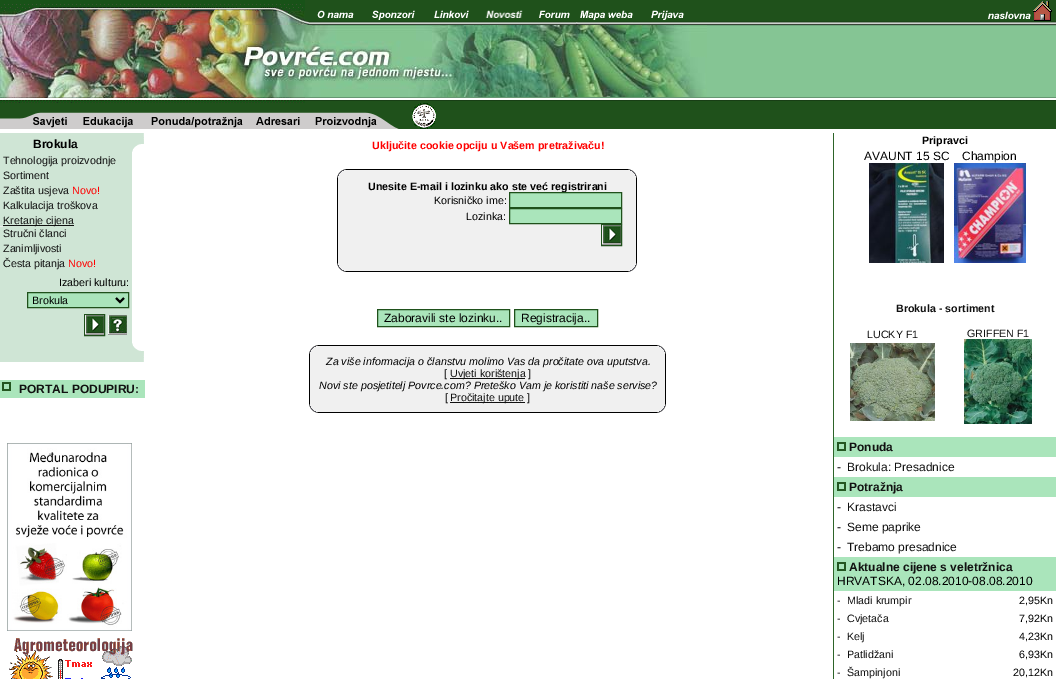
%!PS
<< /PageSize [1056 679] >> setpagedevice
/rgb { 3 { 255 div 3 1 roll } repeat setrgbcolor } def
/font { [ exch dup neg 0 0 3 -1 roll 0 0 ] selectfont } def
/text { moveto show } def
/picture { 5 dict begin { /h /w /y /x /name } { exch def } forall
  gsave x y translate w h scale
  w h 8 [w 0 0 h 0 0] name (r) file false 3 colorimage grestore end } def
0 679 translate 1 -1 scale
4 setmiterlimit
255 255 255 rgb
0 0 1056 679 rectfill
(img_01.rgb) 0 0 1056 129 picture
(img_02.rgb) 0 0 305 11 picture
(img_03.rgb) 0 11 305 14 picture
(img_04.rgb) 317 10 37 8 picture
(img_05.rgb) 372 10 43 10 picture
(img_06.rgb) 434 10 35 8 picture
(img_07.rgb) 485 10 38 8 picture
(img_08.rgb) 539 10 31 8 picture
(img_09.rgb) 576 10 57 15 picture
(img_10.rgb) 651 10 33 10 picture
(img_11.rgb) 988 1 64 20 picture
(img_12.rgb) 305 21 4 4 picture
(img_13.rgb) 0 25 466 72 picture
(img_14.rgb) 466 25 241 72 picture
(img_15.rgb) 0 97 305 6 picture
(img_16.rgb) 0 115 30 14 picture
(img_17.rgb) 30 112 44 17 picture
(img_18.rgb) 74 112 69 17 picture
(img_19.rgb) 143 112 104 17 picture
(img_20.rgb) 247 112 58 17 picture
(img_21.rgb) 305 112 94 17 picture
(img_22.rgb) 412 103 24 26 picture
207 229 213 rgb
0 154 132 187 rectfill
(img_23.rgb) 0 133 144 21 picture
238 238 238 rgb
0 226 3 1 rectfill
17 17 17 rgb
3 225 71 1 rectfill
170 229 187 rgb
27.5 292.5 moveto 101 0 rlineto 0 15 rlineto -101 0 rlineto closepath gsave fill grestore
31 81 27 rgb
stroke
0 0 0 rgb
2 setlinewidth
116 298 moveto 4 4 rlineto 4 -4 rlineto stroke
31 81 27 rgb
1 setlinewidth
84.5 314.5 20 21 rectstroke
(img_24.rgb) 85 315 19 20 picture
(img_25.rgb) 108 315 19 20 picture
(img_26.rgb) 0 341 144 21 picture
170 229 187 rgb
0 380 145 18 rectfill
(img_27.rgb) 2 382 9 9 picture
(img_28.rgb) 7 443 125 188 picture
(img_29.rgb) 9 638 124 41 picture
240 240 240 rgb
338 170 298 101 rectfill
(img_30.rgb) 337 169 10 10 picture
0 0 0 rgb
347 169 280 1 rectfill
(img_31.rgb) 627 169 10 10 picture
337 179 1 83 rectfill
170 229 187 rgb
509.5 208.5 moveto 112 0 rlineto 0 15 rlineto -112 0 rlineto closepath gsave fill grestore
31 81 27 rgb
stroke
601.5 224.5 20 21 rectstroke
(img_24.rgb) 602 225 19 20 picture
0 0 0 rgb
636 179 1 83 rectfill
(img_32.rgb) 337 262 10 10 picture
347 271 280 1 rectfill
(img_33.rgb) 627 262 10 10 picture
170 229 187 rgb
377.5 309.5 moveto 132 0 rlineto 0 17 rlineto -132 0 rlineto closepath gsave fill grestore
31 81 27 rgb
stroke
170 229 187 rgb
514.5 309.5 moveto 83 0 rlineto 0 17 rlineto -83 0 rlineto closepath gsave fill grestore
31 81 27 rgb
stroke
240 240 240 rgb
310 346 355 66 rectfill
(img_30.rgb) 309 345 10 10 picture
0 0 0 rgb
319 345 337 1 rectfill
(img_31.rgb) 656 345 10 10 picture
309 355 1 48 rectfill
17 17 17 rgb
450 378 75 1 rectfill
450 402 75 1 rectfill
0 0 0 rgb
665 355 1 48 rectfill
(img_32.rgb) 309 403 10 10 picture
319 412 337 1 rectfill
(img_33.rgb) 656 403 10 10 picture
45 100 41 rgb
833 133 1 546 rectfill
(img_34.rgb) 869 163 75 100 picture
(img_35.rgb) 954 163 72 100 picture
(img_36.rgb) 850 343 85 78 picture
(img_37.rgb) 964 339 68 85 picture
170 229 187 rgb
834 437 222 20 rectfill
(img_27.rgb) 837 442 9 9 picture
834 477 222 20 rectfill
(img_27.rgb) 837 482 9 9 picture
834 557 222 34 rectfill
(img_27.rgb) 837 562 9 9 picture
/LiberationSans-Bold 12 font
0 0 0 rgb
(Brokula) 33 148 text
/LiberationSans-Regular 10.7 font
17 17 17 rgb
(Tehnologija proizvodnje) 3 164 text
(Sortiment) 3 179 text
(Zaštita usjeva) 3 194 text
255 0 0 rgb
(Novo!) 72 194 text
17 17 17 rgb
(Kalkulacija troškova) 3 209 text
(Kretanje cijena) 3 224 text
(Stručni članci) 3 237 text
(Zanimljivosti) 3 252 text
(Česta pitanja) 3 267 text
255 0 0 rgb
(Novo!) 68 267 text
0 0 0 rgb
(Izaberi kulturu:) 59 286 text
(Brokula) 32 304 text
/LiberationSans-Bold 12 font
17 17 17 rgb
(PORTAL PODUPIRU:) 19 393 text
/LiberationSans-Bold 10.7 font
255 0 0 rgb
(Uključite cookie opciju u Vašem pretraživaču!) 372 149 text
0 0 0 rgb
(Unesite E-mail i lozinku ako ste već registrirani) 368 190 text
/LiberationSans-Regular 10.7 font
(Korisničko ime:) 434 204 text
170 229 187 rgb
509.5 192.5 moveto 112 0 rlineto 0 15 rlineto -112 0 rlineto closepath gsave fill grestore
31 81 27 rgb
stroke
0 0 0 rgb
(Lozinka:) 466 220 text
/LiberationSans-Regular 12 font
(Zaboravili ste lozinku..) 384 322 text
(Registracija..) 521 322 text
/LiberationSans-Italic 10.7 font
(Za više informacija o članstvu molimo Vas da pročitate ova uputstva.) 326 365 text
/LiberationSans-Regular 10.7 font
17 17 17 rgb
([) 444 377 text
(Uvjeti korištenja ]) 450 377 text
/LiberationSans-Italic 10.7 font
0 0 0 rgb
(Novi ste posjetitelj Povrce.com? Preteško Vam je koristiti naše servise?) 319 389 text
/LiberationSans-Regular 10.7 font
17 17 17 rgb
([) 445 401 text
(Pročitajte upute ]) 450 401 text
/LiberationSans-Bold 10.7 font
0 0 0 rgb
(Pripravci) 922 144 text
/LiberationSans-Regular 12 font
(AVAUNT 15 SC) 864 160 text
(Champion) 962 160 text
/LiberationSans-Bold 10.7 font
17 17 17 rgb
(Brokula - sortiment) 896 312 text
/LiberationSans-Regular 10.7 font
(LUCKY F1) 867 338 text
(GRIFFEN F1) 967 337 text
/LiberationSans-Bold 12 font
(Ponuda) 849 451 text
/LiberationSans-Regular 12 font
0 0 0 rgb
(-) 837 471 text
17 17 17 rgb
(Brokula: Presadnice) 847 471 text
/LiberationSans-Bold 12 font
(Potražnja) 849 491 text
/LiberationSans-Regular 12 font
0 0 0 rgb
(-) 837 511 text
17 17 17 rgb
(Krastavci) 847 511 text
0 0 0 rgb
(-) 837 531 text
17 17 17 rgb
(Seme paprike) 847 531 text
0 0 0 rgb
(-) 837 551 text
17 17 17 rgb
(Trebamo presadnice) 847 551 text
/LiberationSans-Bold 12 font
(Aktualne cijene s veletržnica) 849 571 text
/LiberationSans-Regular 12 font
0 0 0 rgb
(HRVATSKA, 02.08.2010-08.08.2010) 837 585 text
/LiberationSans-Regular 10.7 font
(-) 837 604 text
17 17 17 rgb
(Mladi krumpir) 847 604 text
0 0 0 rgb
(2,95Kn) 1019 604 text
(-) 837 622 text
17 17 17 rgb
(Cvjetača) 847 622 text
0 0 0 rgb
(7,92Kn) 1019 622 text
(-) 837 640 text
17 17 17 rgb
(Kelj) 847 640 text
0 0 0 rgb
(4,23Kn) 1019 640 text
(-) 837 658 text
17 17 17 rgb
(Patlidžani) 847 658 text
0 0 0 rgb
(6,93Kn) 1019 658 text
(-) 837 676 text
17 17 17 rgb
(Šampinjoni) 847 676 text
0 0 0 rgb
(20,12Kn) 1013 676 text
showpage
